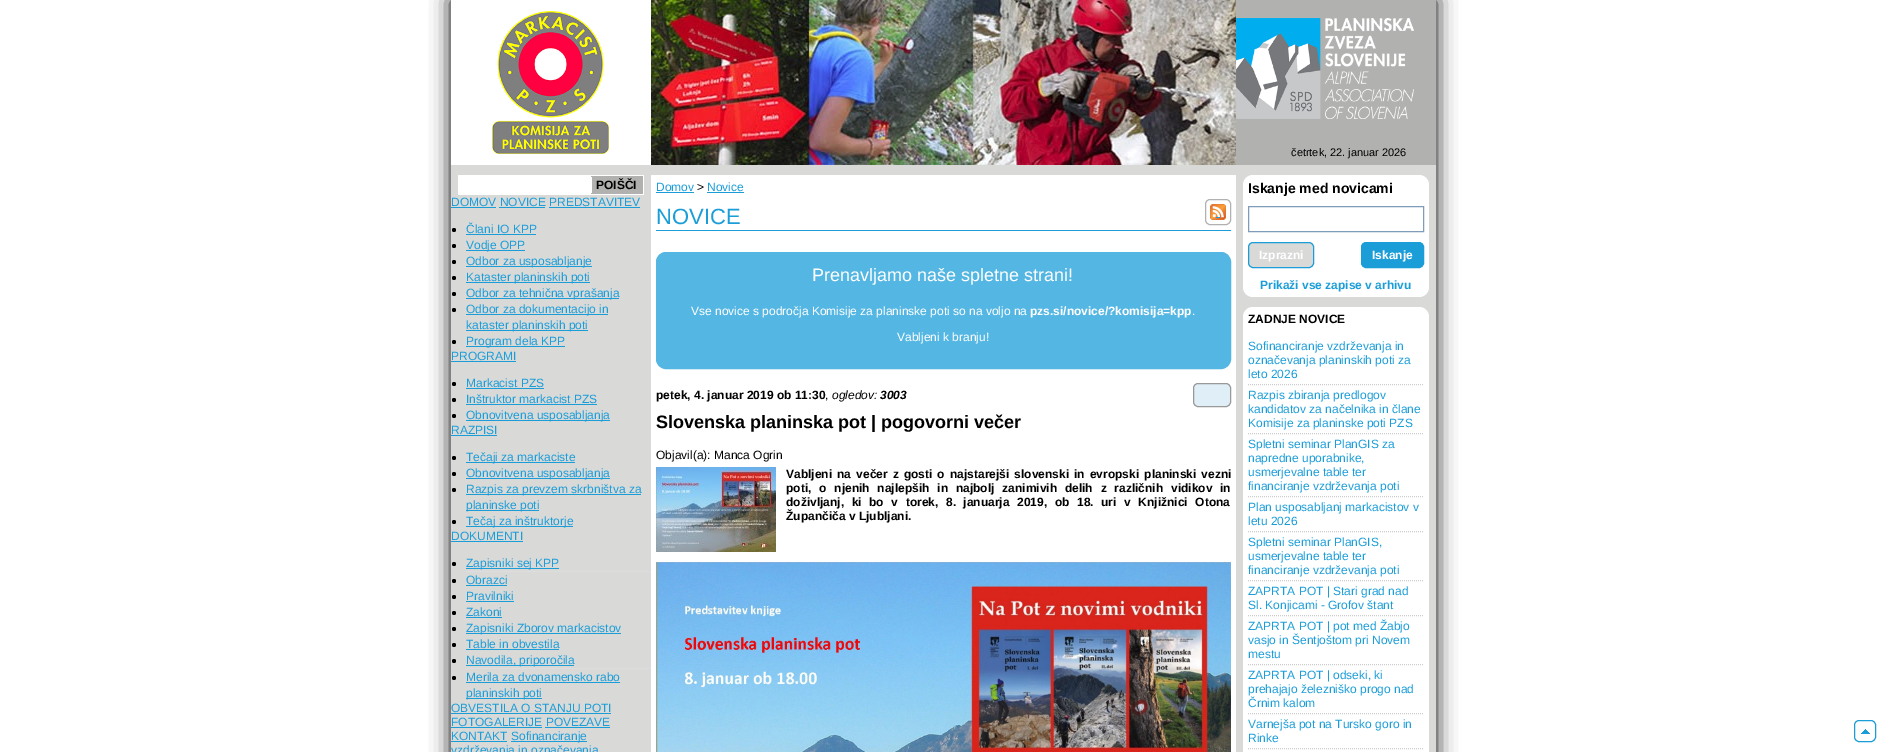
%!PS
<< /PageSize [1886 752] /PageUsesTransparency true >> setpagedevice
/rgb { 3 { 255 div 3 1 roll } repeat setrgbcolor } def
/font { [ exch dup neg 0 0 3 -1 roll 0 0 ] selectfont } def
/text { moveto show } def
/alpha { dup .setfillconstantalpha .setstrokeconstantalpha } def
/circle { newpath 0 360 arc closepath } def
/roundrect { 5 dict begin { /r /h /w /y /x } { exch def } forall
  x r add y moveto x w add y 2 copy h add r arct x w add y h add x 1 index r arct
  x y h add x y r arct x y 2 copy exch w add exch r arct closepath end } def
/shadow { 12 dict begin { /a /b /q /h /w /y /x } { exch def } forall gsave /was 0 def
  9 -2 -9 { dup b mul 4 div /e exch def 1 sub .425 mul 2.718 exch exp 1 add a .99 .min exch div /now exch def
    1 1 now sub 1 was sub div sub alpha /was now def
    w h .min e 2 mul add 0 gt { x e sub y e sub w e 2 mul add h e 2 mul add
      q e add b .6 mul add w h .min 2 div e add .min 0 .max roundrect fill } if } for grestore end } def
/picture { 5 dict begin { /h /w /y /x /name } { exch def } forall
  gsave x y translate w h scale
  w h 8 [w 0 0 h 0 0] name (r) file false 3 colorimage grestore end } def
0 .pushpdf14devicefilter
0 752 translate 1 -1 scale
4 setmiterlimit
255 255 255 rgb
0 0 1886 752 rectfill
0 0 0 rgb
451 0 985 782 0 10 1 shadow
217 217 216 rgb
451 165 985 587 rectfill
255 255 255 rgb
451 0 200 165 rectfill
(img_01.rgb) 492 11 117 143 picture
(img_02.rgb) 651 0 585 165 picture
177 177 176 rgb
1236 0 200 165 rectfill
(img_03.rgb) 1236 18 178 101 picture
255 255 255 rgb
458 175 186 20 rectfill
177 177 176 rgb
591 176 52 18 rectfill
255 255 255 rgb
591 177 1 16 rectfill
27 157 216 rgb
451 207 45 1 rectfill
499 207 46 1 rectfill
549 207 91 1 rectfill
0 0 0 rgb
454 230 2 circle fill
27 157 216 rgb
466 234 70 1 rectfill
0 0 0 rgb
454 246 2 circle fill
27 157 216 rgb
466 250 59 1 rectfill
0 0 0 rgb
454 262 2 circle fill
27 157 216 rgb
466 266 126 1 rectfill
0 0 0 rgb
454 278 2 circle fill
27 157 216 rgb
466 282 124 1 rectfill
0 0 0 rgb
454 294 2 circle fill
27 157 216 rgb
466 298 153 1 rectfill
0 0 0 rgb
454 310 2 circle fill
27 157 216 rgb
466 314 142 1 rectfill
466 330 122 1 rectfill
0 0 0 rgb
454 342 2 circle fill
27 157 216 rgb
466 346 99 1 rectfill
451 361 65 1 rectfill
0 0 0 rgb
454 384 2 circle fill
27 157 216 rgb
466 388 78 1 rectfill
0 0 0 rgb
454 400 2 circle fill
27 157 216 rgb
466 404 131 1 rectfill
0 0 0 rgb
454 416 2 circle fill
27 157 216 rgb
466 420 144 1 rectfill
451 435 46 1 rectfill
0 0 0 rgb
454 458 2 circle fill
27 157 216 rgb
466 462 109 1 rectfill
0 0 0 rgb
454 474 2 circle fill
27 157 216 rgb
466 478 144 1 rectfill
0 0 0 rgb
454 490 2 circle fill
27 157 216 rgb
466 494 175 1 rectfill
466 510 73 1 rectfill
0 0 0 rgb
454 522 2 circle fill
27 157 216 rgb
466 526 107 1 rectfill
451 541 72 1 rectfill
221 221 221 rgb
466 571 185 1 rectfill
0 0 0 rgb
454 564 2 circle fill
27 157 216 rgb
466 568 93 1 rectfill
0 0 0 rgb
454 581 2 circle fill
27 157 216 rgb
466 585 41 1 rectfill
0 0 0 rgb
454 597 2 circle fill
27 157 216 rgb
466 601 48 1 rectfill
0 0 0 rgb
454 613 2 circle fill
27 157 216 rgb
466 617 36 1 rectfill
0 0 0 rgb
454 629 2 circle fill
27 157 216 rgb
466 633 155 1 rectfill
0 0 0 rgb
454 645 2 circle fill
27 157 216 rgb
466 649 93 1 rectfill
0 0 0 rgb
454 661 2 circle fill
27 157 216 rgb
466 665 108 1 rectfill
221 221 221 rgb
466 668 185 1 rectfill
0 0 0 rgb
454 678 2 circle fill
27 157 216 rgb
466 682 154 1 rectfill
466 698 76 1 rectfill
451 713 160 1 rectfill
451 727 91 1 rectfill
545 727 65 1 rectfill
451 741 56 1 rectfill
511 741 76 1 rectfill
255 255 255 rgb
651 175 585 577 rectfill
27 157 216 rgb
656 192 38 1 rectfill
707 192 37 1 rectfill
(img_04.rgb) 1210 204 16 16 picture
177 177 176 rgb
1205.5 199.5 25 25 4.5 roundrect stroke
27 157 216 rgb
1216 217 4 1 rectfill
656 230 575 1 rectfill
84 182 226 rgb
656.5 252.5 574 116 9.5 roundrect gsave fill grestore
stroke
224 238 247 rgb
1193.5 383.5 37 23 4.5 roundrect gsave fill grestore
153 153 153 rgb
stroke
(img_05.rgb) 656 467 120 85 picture
(img_06.rgb) 656 562 575 190 picture
255 255 255 rgb
1243 175 186 122 10 roundrect fill
127 157 185 rgb
1248.5 206.5 175 25 rectstroke
217 217 216 rgb
1248.5 242.5 65 25 4.5 roundrect gsave fill grestore
27 157 216 rgb
stroke
1361.5 242.5 62 25 4.5 roundrect gsave fill grestore
stroke
255 255 255 rgb
1243 307 186 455 10 roundrect fill
204 204 204 rgb
[1 1] 0 setdash
1248 384.5 moveto 176 0 rlineto stroke
1248 433.5 moveto 176 0 rlineto stroke
1248 496.5 moveto 176 0 rlineto stroke
1248 531.5 moveto 176 0 rlineto stroke
1248 580.5 moveto 176 0 rlineto stroke
1248 615.5 moveto 176 0 rlineto stroke
1248 664.5 moveto 176 0 rlineto stroke
1248 713.5 moveto 176 0 rlineto stroke
1248 748.5 moveto 176 0 rlineto stroke
(img_07.rgb) 1861 729 9 5 picture
27 157 216 rgb
[] 0 setdash
1854.5 720.5 21 21 4.5 roundrect stroke
/LiberationSans-Regular 11 font
0 0 0 rgb
(četrtek, 22. januar 2026) 1291 156 text
/LiberationSans-Bold 12 font
(POIŠČI) 596 189 text
/LiberationSans-Regular 12 font
27 157 216 rgb
(DOMOV NOVICE PREDSTAVITEV) 451 206 text
(Člani IO KPP) 466 233 text
(Vodje OPP) 466 249 text
(Odbor za usposabljanje) 466 265 text
(Kataster planinskih poti) 466 281 text
(Odbor za tehnična vprašanja) 466 297 text
(Odbor za dokumentacijo in) 466 313 text
(kataster planinskih poti) 466 329 text
(Program dela KPP) 466 345 text
(PROGRAMI) 451 360 text
(Markacist PZS) 466 387 text
(Inštruktor markacist PZS) 466 403 text
(Obnovitvena usposabljanja) 466 419 text
(RAZPISI) 451 434 text
(Tečaji za markaciste) 466 461 text
(Obnovitvena usposabljanja) 466 477 text
(Razpis za prevzem skrbništva za) 466 493 text
(planinske poti) 466 509 text
(Tečaj za inštruktorje) 466 525 text
(DOKUMENTI) 451 540 text
(Zapisniki sej KPP) 466 567 text
(Obrazci) 466 584 text
(Pravilniki) 466 600 text
(Zakoni) 466 616 text
(Zapisniki Zborov markacistov) 466 632 text
(Table in obvestila) 466 648 text
(Navodila, priporočila) 466 664 text
(Merila za dvonamensko rabo) 466 681 text
(planinskih poti) 466 697 text
(OBVESTILA O STANJU POTI) 451 712 text
(FOTOGALERIJE POVEZAVE) 451 726 text
(KONTAKT) 451 740 text
(Sofinanciranje) 511 740 text
(vzdrževanja in označevanja) 451 754 text
(Domov) 656 191 text
0 0 0 rgb
(>) 697 191 text
27 157 216 rgb
(Novice) 707 191 text
/LiberationSans-Regular 22 font
(NOVICE) 656 224 text
/LiberationSans-Regular 18 font
255 255 255 rgb
(Prenavljamo naše spletne strani!) 812 281 text
/LiberationSans-Regular 12 font
(Vse novice s področja Komisije za planinske poti so na voljo na) 691 315 text
/LiberationSans-Bold 12 font
(pzs.si/novice/?komisija=kpp) 1030 315 text
/LiberationSans-Regular 12 font
(.) 1192 315 text
(Vabljeni k branju!) 897 341 text
/LiberationSans-Bold 12 font
0 0 0 rgb
(petek, 4. januar 2019 ob 11:30) 656 399 text
/LiberationSans-Regular 12 font
(,) 825 399 text
/LiberationSans-Italic 12 font
(ogledov:) 832 399 text
/LiberationSans-BoldItalic 12 font
(3003) 880 399 text
/LiberationSans-Bold 18 font
(Slovenska planinska pot | pogovorni večer) 656 428 text
/LiberationSans-Regular 12 font
(Objavil\(a\): Manca Ogrin) 656 459 text
/LiberationSans-Bold 12 font
786 478 moveto 1.75 0 32 (Vabljeni na večer z gosti o najstarejši slovenski in evropski planinski vezni) widthshow
786 492 moveto 4.5 0 32 (poti, o njenih najlepših in najbolj zanimivih delih z različnih vidikov in) widthshow
786 506 moveto 4.25 0 32 (doživljanj, ki bo v torek, 8. januarja 2019, ob 18. uri v Knjižnici Otona) widthshow
(Župančiča v Ljubljani.) 786 520 text
/LiberationSans-Bold 14 font
(Iskanje med novicami) 1248 193 text
/LiberationSans-Bold 12 font
255 255 255 rgb
(Izprazni) 1259 259 text
(Iskanje) 1372 259 text
27 157 216 rgb
(Prikaži vse zapise v arhivu) 1260 289 text
0 0 0 rgb
(ZADNJE NOVICE) 1248 323 text
/LiberationSans-Regular 12 font
27 157 216 rgb
(Sofinanciranje vzdrževanja in) 1248 350 text
(označevanja planinskih poti za) 1248 364 text
(leto 2026) 1248 378 text
(Razpis zbiranja predlogov) 1248 399 text
(kandidatov za načelnika in člane) 1248 413 text
(Komisije za planinske poti PZS) 1248 427 text
(Spletni seminar PlanGIS za) 1248 448 text
(napredne uporabnike,) 1248 462 text
(usmerjevalne table ter) 1248 476 text
(financiranje vzdrževanja poti) 1248 490 text
(Plan usposabljanj markacistov v) 1248 511 text
(letu 2026) 1248 525 text
(Spletni seminar PlanGIS,) 1248 546 text
(usmerjevalne table ter) 1248 560 text
(financiranje vzdrževanja poti) 1248 574 text
(ZAPRTA POT | Stari grad nad) 1248 595 text
(Sl. Konjicami - Grofov štant) 1248 609 text
(ZAPRTA POT | pot med Žabjo) 1248 630 text
(vasjo in Šentjoštom pri Novem) 1248 644 text
(mestu) 1248 658 text
(ZAPRTA POT | odseki, ki) 1248 679 text
(prehajajo železniško progo nad) 1248 693 text
(Črnim kalom) 1248 707 text
(Varnejša pot na Tursko goro in) 1248 728 text
(Rinke) 1248 742 text
.poppdf14devicefilter showpage
